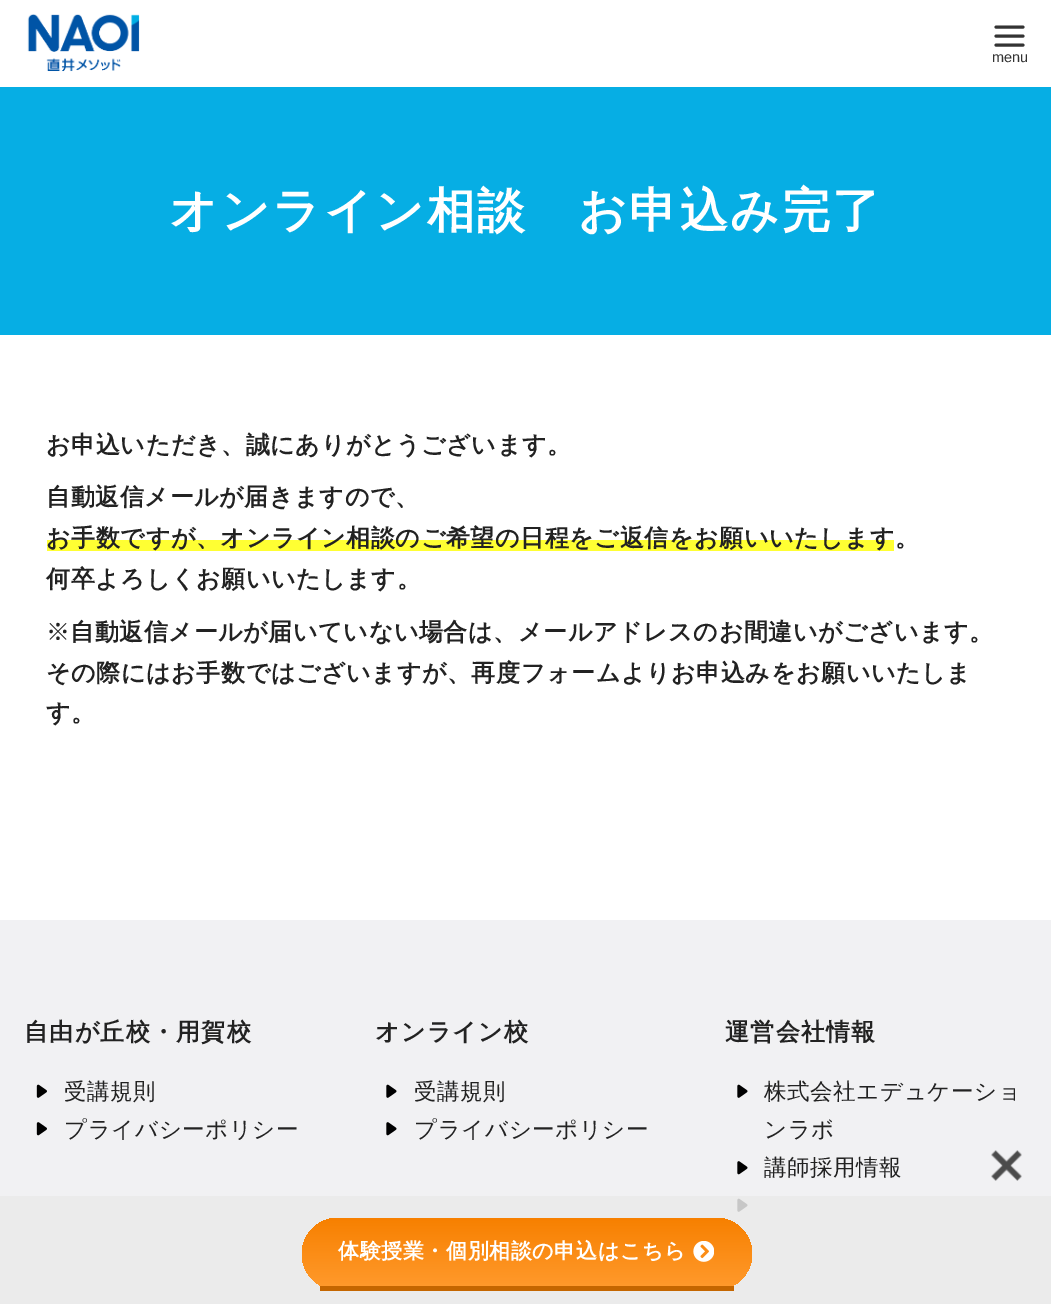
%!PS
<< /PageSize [1051 1304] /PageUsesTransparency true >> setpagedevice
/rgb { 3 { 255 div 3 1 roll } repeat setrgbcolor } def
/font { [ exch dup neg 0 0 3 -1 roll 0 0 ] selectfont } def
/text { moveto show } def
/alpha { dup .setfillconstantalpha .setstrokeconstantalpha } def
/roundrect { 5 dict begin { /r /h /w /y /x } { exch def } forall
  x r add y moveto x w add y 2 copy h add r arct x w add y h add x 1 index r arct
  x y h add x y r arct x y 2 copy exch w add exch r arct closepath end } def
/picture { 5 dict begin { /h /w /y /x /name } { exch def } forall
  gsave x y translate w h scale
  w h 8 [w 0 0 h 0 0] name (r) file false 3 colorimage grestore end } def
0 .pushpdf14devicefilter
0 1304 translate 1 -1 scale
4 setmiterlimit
255 255 255 rgb
0 0 1051 1304 rectfill
(img_01.rgb) 27 14 113 58 picture
51 51 51 rgb
3 setlinewidth
1 setlinecap
1 setlinejoin
996 36 moveto 27 0 rlineto 996 27 moveto 27 0 rlineto 996 45 moveto 27 0 rlineto stroke
6 174 228 rgb
0 87 1051 248 rectfill
255 255 51 rgb
47 540 847 11 rectfill
241 241 243 rgb
0 920 1051 384 rectfill
(img_02.rgb) 36 1084 11 14 picture
(img_03.rgb) 36 1122 11 14 picture
(img_04.rgb) 386 1084 11 14 picture
(img_05.rgb) 386 1122 11 14 picture
(img_04.rgb) 737 1084 11 14 picture
(img_05.rgb) 737 1161 11 14 picture
(img_04.rgb) 737 1198 11 14 picture
0.85 alpha
234 234 234 rgb
0 1196 1051 108 rectfill
1 alpha
(img_06.rgb) 991 1150 31 31 picture
gsave
302 1218 450 72 36 roundrect clip newpath
gsave 338 1218 moveto 378 0 rlineto 20 0 36 16 36 36 rcurveto 0 32 rlineto -450 0 rlineto 0 -32 rlineto 0 -20 16 -36 36 -36 rcurveto closepath clip newpath
<< /ShadingType 2 /ColorSpace /DeviceRGB /Coords [527 1218 527 1286] /Extend [true true] /Function << /FunctionType 2 /Domain [0 1] /C0 [0.969 0.502 0] /C1 [1 0.6 0.169] /N 1 >> >> shfill grestore
grestore
196 102 0 rgb
320 1286 414 5 rectfill
(img_07.rgb) 693 1241 21 21 picture
/LiberationSans-Regular 14.5 font
51 51 51 rgb
(menu) 992 62 text
/WenQuanYiZenHei-Bold 48 font
255 255 255 rgb
169 227 moveto 2.4 0 (オンライン相談　お申込み完了) ashow
/WenQuanYiZenHei-Bold 24 font
34 34 34 rgb
46 453 moveto 0.6 0 (お申込いただき、誠にありがとうございます。) ashow
46 505 moveto 0.6 0 (自動返信メールが届きますので、) ashow
46 546 moveto 0.6 0 (お手数ですが、オンライン相談のご希望の日程をご返信をお願いいたします。) ashow
46 587 moveto 0.6 0 (何卒よろしくお願いいたします。) ashow
/WenQuanYiZenHei-Medium 24 font
46 640 moveto 0.6 0 (※) ashow
/WenQuanYiZenHei-Bold 24 font
70 640 moveto 0.6 0 (自動返信メールが届いていない場合は、メールアドレスのお間違いがございます。) ashow
46 681 moveto 0.6 0 (その際にはお手数ではございますが、再度フォームよりお申込みをお願いいたしま) ashow
46 721 moveto 0.6 0 (す。) ashow
24 1040 moveto 1.25 0 (自由が丘校・用賀校) ashow
/WenQuanYiZenHei-Medium 22.5 font
64 1099 moveto 0.6 0 (受講規則) ashow
64 1137 moveto 0.6 0 (プライバシーポリシー) ashow
/WenQuanYiZenHei-Bold 24 font
375 1040 moveto 1.25 0 (オンライン校) ashow
/WenQuanYiZenHei-Medium 22.5 font
414 1099 moveto 0.6 0 (受講規則) ashow
414 1137 moveto 0.6 0 (プライバシーポリシー) ashow
/WenQuanYiZenHei-Bold 24 font
725 1040 moveto 1.25 0 (運営会社情報) ashow
/WenQuanYiZenHei-Medium 22.5 font
764 1099 moveto 0.6 0 (株式会社エデュケーショ) ashow
764 1137 moveto 0.6 0 (ンラボ) ashow
764 1175 moveto 0.6 0 (講師採用情報) ashow
/WenQuanYiZenHei-Bold 21 font
255 255 255 rgb
338 1258 moveto 0.6 0 (体験授業・個別相談の申込はこちら) ashow
.poppdf14devicefilter showpage
